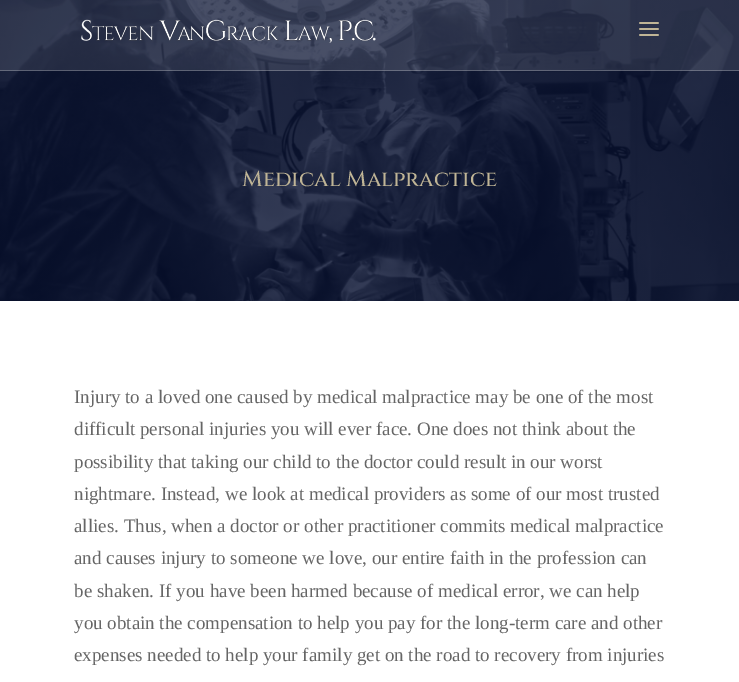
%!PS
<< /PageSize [739 682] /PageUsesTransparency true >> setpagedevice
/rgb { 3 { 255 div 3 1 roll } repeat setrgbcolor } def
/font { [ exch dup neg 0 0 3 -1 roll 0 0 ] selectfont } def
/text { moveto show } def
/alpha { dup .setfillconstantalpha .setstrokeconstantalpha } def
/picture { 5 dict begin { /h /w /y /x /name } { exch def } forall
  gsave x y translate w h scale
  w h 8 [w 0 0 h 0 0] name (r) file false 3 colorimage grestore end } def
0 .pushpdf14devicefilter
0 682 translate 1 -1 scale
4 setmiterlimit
255 255 255 rgb
0 0 739 682 rectfill
(img_03.rgb) 0 0 739 301 picture
0.1 alpha
0 0 739 71 rectfill
0.25 alpha
0 70 739 1 rectfill
1 alpha
(img_01.rgb) 81 19 295 24 picture
(img_02.rgb) 639 22 20 14 picture
/Cinzel-Medium 22 font
192 181 150 rgb
(Medical Malpractice) 242 186 text
/Tinos-Regular 19 font
102 102 102 rgb
(Injury to a loved one caused by medical malpractice may be one of the most) 74 403 text
(difficult personal injuries you will ever face. One does not think about the) 74 435 text
(possibility that taking our child to the doctor could result in our worst) 74 468 text
(nightmare. Instead, we look at medical providers as some of our most trusted) 74 500 text
(allies. Thus, when a doctor or other practitioner commits medical malpractice) 74 532 text
(and causes injury to someone we love, our entire faith in the profession can) 74 564 text
(be shaken. If you have been harmed because of medical error, we can help) 74 597 text
(you obtain the compensation to help you pay for the long-term care and other) 74 629 text
(expenses needed to help your family get on the road to recovery from injuries) 74 661 text
.poppdf14devicefilter showpage
